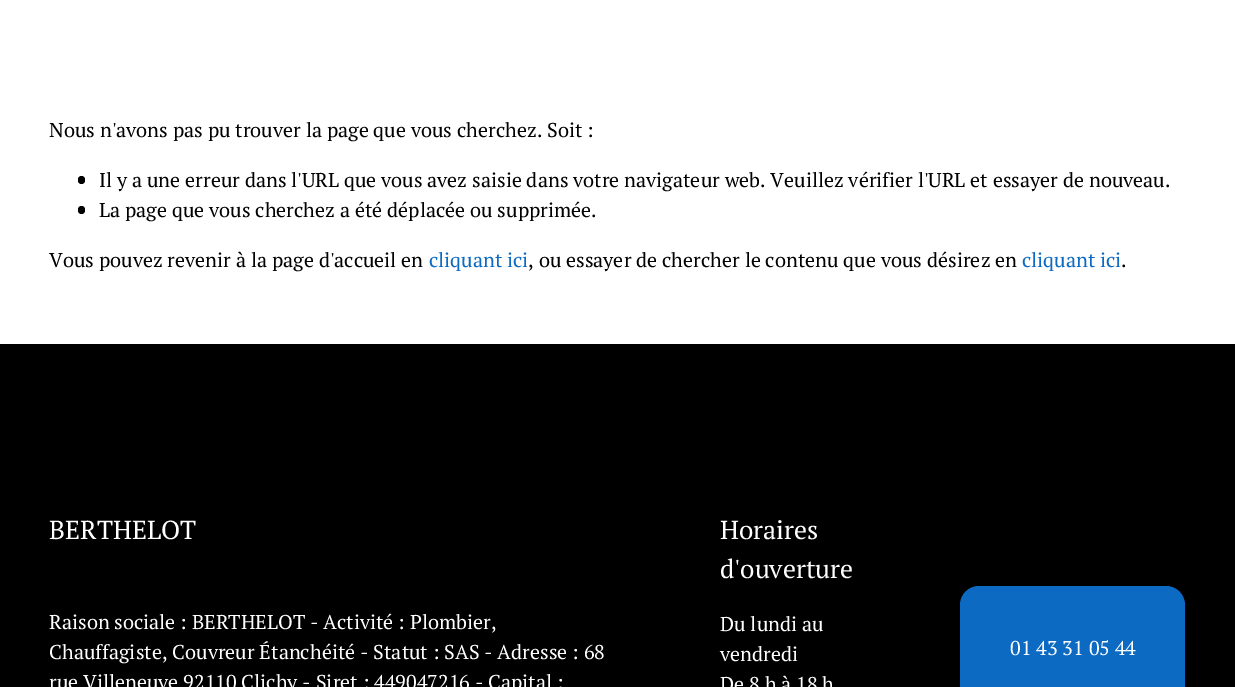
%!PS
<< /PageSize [1235 687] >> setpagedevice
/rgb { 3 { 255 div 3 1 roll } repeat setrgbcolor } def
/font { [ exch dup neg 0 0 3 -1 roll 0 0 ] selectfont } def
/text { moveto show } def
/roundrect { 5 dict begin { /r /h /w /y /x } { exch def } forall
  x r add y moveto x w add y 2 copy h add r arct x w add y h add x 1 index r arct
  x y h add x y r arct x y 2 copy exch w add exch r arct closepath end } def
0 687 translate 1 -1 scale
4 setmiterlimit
255 255 255 rgb
0 0 1235 687 rectfill
0 0 0 rgb
78 176 7 8 3.5 roundrect fill
78 206 7 8 3.5 roundrect fill
0 344 1235 343 rectfill
12 106 194 rgb
960 586 225 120 19 roundrect fill
/PTSerif-Regular 20 font
0 0 0 rgb
(Nous n'avons pas pu trouver la page que vous cherchez. Soit :) 49 137 text
(Il y a une erreur dans l'URL que vous avez saisie dans votre navigateur web. Veuillez vérifier l'URL et essayer de nouveau.) 99 187 text
(La page que vous cherchez a été déplacée ou supprimée.) 99 217 text
(Vous pouvez revenir à la page d'accueil en) 49 267 text
12 106 194 rgb
(cliquant ici) 429 267 text
0 0 0 rgb
(, ou essayer de chercher le contenu que vous désirez en) 528 267 text
12 106 194 rgb
(cliquant ici) 1022 267 text
0 0 0 rgb
(.) 1121 267 text
/PTSerif-Regular 26 font
255 255 255 rgb
(BERTHELOT) 49 539 text
(Horaires) 720 539 text
(d'ouverture) 720 578 text
/PTSerif-Regular 20 font
(Du lundi au) 720 631 text
(vendredi) 720 661 text
(De 8 h à 18 h) 720 691 text
(Raison sociale : BERTHELOT - Activité : Plombier,) 49 629 text
(Chauffagiste, Couvreur Étanchéité - Statut : SAS - Adresse : 68) 49 659 text
(rue Villeneuve 92110 Clichy - Siret : 449047216 - Capital :) 49 689 text
(01 43 31 05 44) 1010 655 text
showpage
